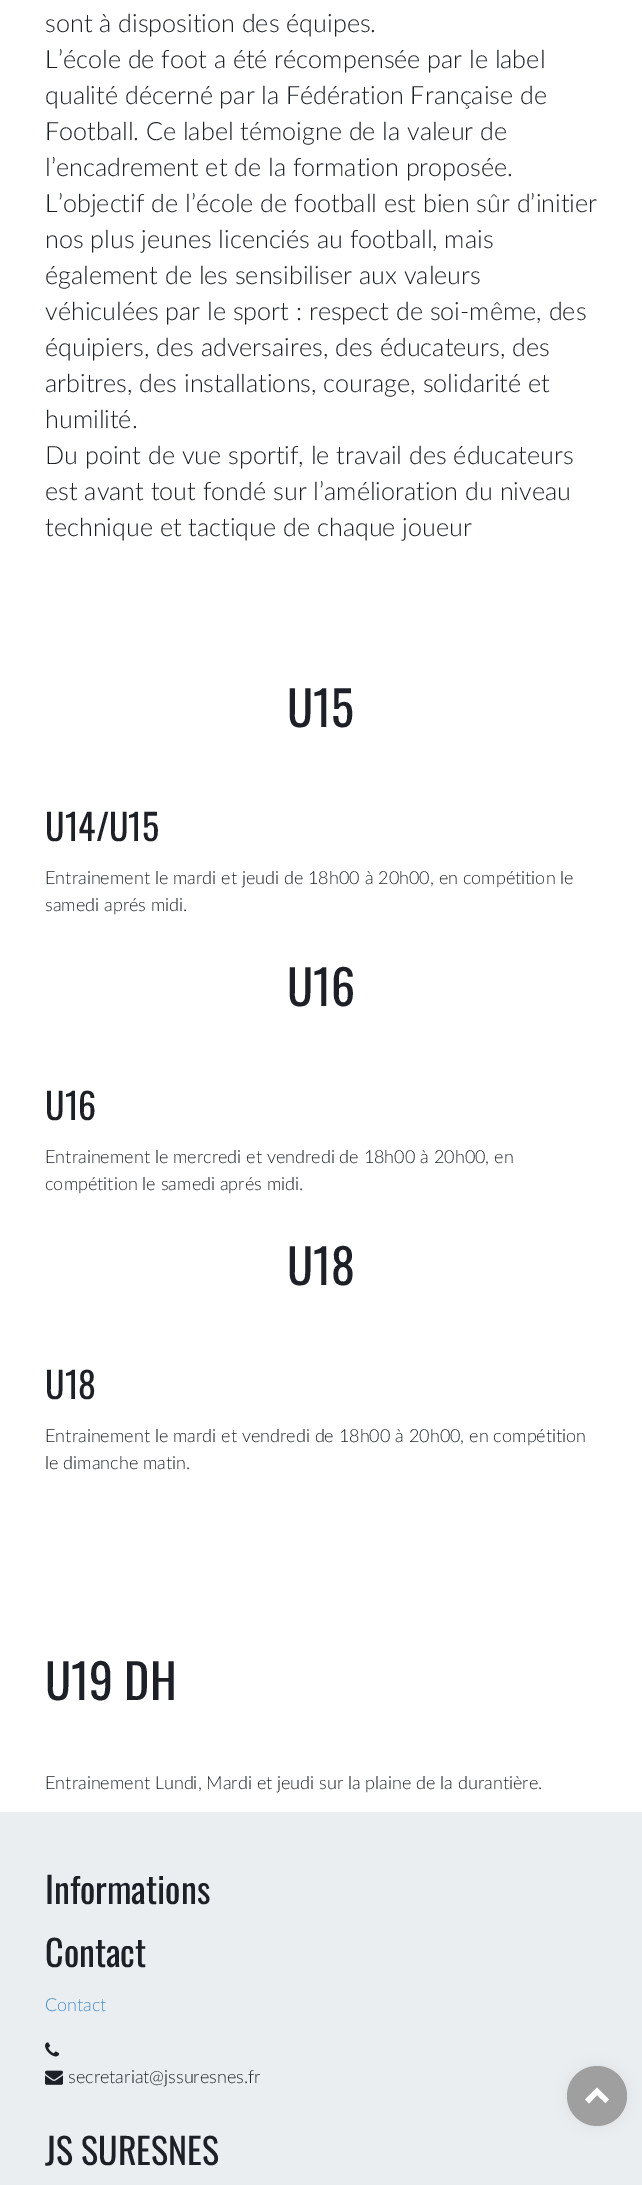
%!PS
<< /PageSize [642 2185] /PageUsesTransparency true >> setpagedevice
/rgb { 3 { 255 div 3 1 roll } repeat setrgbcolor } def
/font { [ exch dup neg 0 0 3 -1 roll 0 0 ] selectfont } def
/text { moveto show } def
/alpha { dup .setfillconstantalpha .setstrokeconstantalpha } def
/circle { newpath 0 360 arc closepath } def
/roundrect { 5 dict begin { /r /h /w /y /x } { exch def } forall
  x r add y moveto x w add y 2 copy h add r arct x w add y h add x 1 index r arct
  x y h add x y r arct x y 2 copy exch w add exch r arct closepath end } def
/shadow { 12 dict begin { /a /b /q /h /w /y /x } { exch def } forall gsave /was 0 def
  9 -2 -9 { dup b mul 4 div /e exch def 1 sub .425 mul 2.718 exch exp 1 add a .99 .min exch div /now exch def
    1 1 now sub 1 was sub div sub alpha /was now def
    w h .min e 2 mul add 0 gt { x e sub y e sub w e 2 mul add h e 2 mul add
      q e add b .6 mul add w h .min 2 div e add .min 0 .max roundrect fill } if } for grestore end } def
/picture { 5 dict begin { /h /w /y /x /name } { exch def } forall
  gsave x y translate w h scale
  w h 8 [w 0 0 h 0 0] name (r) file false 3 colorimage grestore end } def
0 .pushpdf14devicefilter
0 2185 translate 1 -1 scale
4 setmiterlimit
255 255 255 rgb
0 0 642 2185 rectfill
235 238 241 rgb
0 1812 642 373 rectfill
(img_01.rgb) 45 2042 15 15 picture
(img_02.rgb) 45 2070 18 15 picture
0 0 0 rgb
567 2066 60 60 30 7.5 0.05 shadow
159 159 159 rgb
597 2096 30 circle fill
255 255 255 rgb
597 2087.5 moveto 12 12 rlineto -3.5 3.5 rlineto -8.5 -8 rlineto -8 8.5 rlineto -4 -4 rlineto closepath fill
/Lato-Light 25.2 font
29 33 39 rgb
(sont à disposition des équipes.) 45 32 text
(L’école de foot a été récompensée par le label) 45 68 text
(qualité décerné par la Fédération Française de) 45 104 text
(Football. Ce label témoigne de la valeur de) 45 140 text
(l’encadrement et de la formation proposée.) 45 176 text
(L’objectif de l’école de football est bien sûr d’initier) 45 212 text
(nos plus jeunes licenciés au football, mais) 45 248 text
(également de les sensibiliser aux valeurs) 45 284 text
(véhiculées par le sport : respect de soi-même, des) 45 320 text
(équipiers, des adversaires, des éducateurs, des) 45 356 text
(arbitres, des installations, courage, solidarité et) 45 392 text
(humilité.) 45 428 text
(Du point de vue sportif, le travail des éducateurs) 45 464 text
(est avant tout fondé sur l’amélioration du niveau) 45 500 text
(technique et tactique de chaque joueur) 45 536 text
/Oswald-Regular 48 font
(U15) 287 727 text
/Oswald-Regular 36 font
(U14/U15) 45 841 text
/Lato-Light 18 font
(Entrainement le mardi et jeudi de 18h00 à 20h00, en compétition le) 45 884 text
(samedi aprés midi.) 45 911 text
/Oswald-Regular 48 font
(U16) 287 1006 text
/Oswald-Regular 36 font
(U16) 45 1120 text
/Lato-Light 18 font
(Entrainement le mercredi et vendredi de 18h00 à 20h00, en) 45 1163 text
(compétition le samedi aprés midi.) 45 1190 text
/Oswald-Regular 48 font
(U18) 287 1285 text
/Oswald-Regular 36 font
(U18) 45 1399 text
/Lato-Light 18 font
(Entrainement le mardi et vendredi de 18h00 à 20h00, en compétition) 45 1442 text
(le dimanche matin.) 45 1469 text
/Oswald-Regular 48 font
(U19 DH) 45 1700 text
/Lato-Light 18 font
(Entrainement Lundi, Mardi et jeudi sur la plaine de la durantière.) 45 1789 text
/Oswald-Regular 36 font
(Informations) 45 1904 text
(Contact) 45 1967 text
/Lato-Light 18 font
66 139 202 rgb
(Contact) 45 2011 text
29 33 39 rgb
(secretariat@jssuresnes.fr) 68 2083 text
/Oswald-Regular 36 font
(JS SURESNES) 45 2165 text
.poppdf14devicefilter showpage
